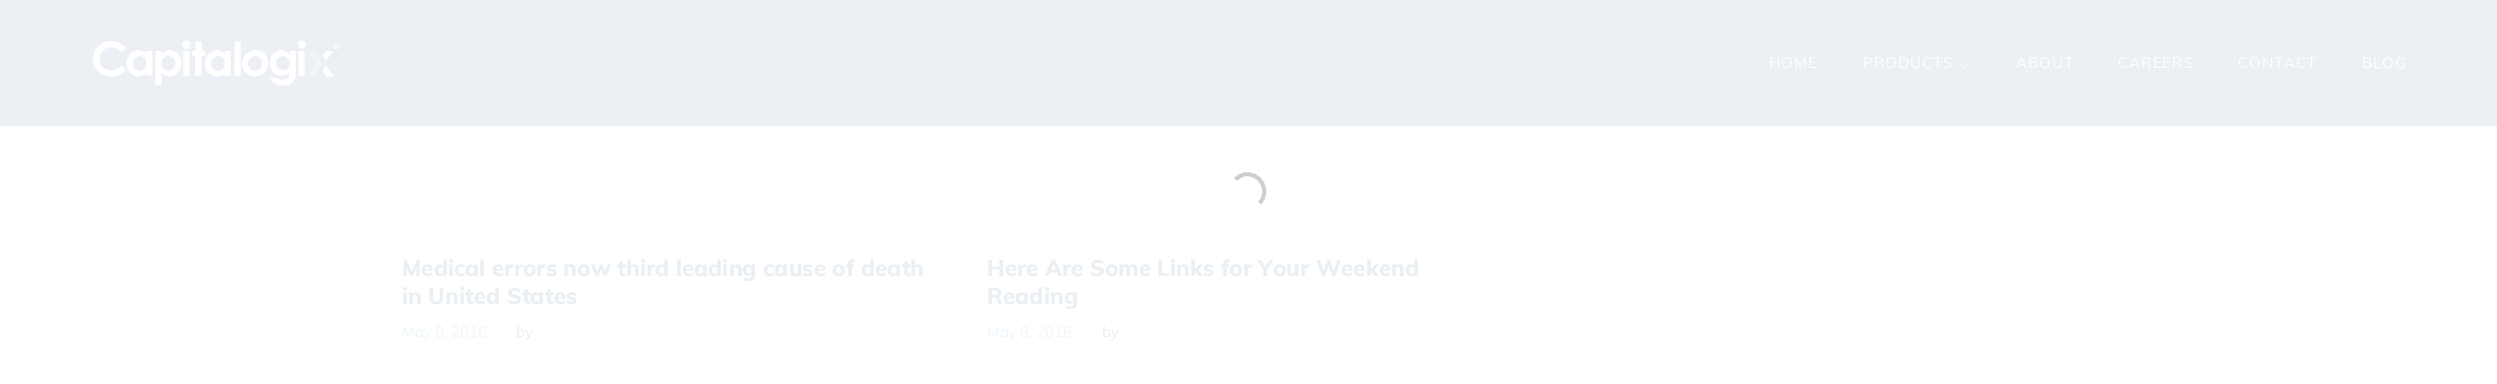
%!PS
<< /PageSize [2497 384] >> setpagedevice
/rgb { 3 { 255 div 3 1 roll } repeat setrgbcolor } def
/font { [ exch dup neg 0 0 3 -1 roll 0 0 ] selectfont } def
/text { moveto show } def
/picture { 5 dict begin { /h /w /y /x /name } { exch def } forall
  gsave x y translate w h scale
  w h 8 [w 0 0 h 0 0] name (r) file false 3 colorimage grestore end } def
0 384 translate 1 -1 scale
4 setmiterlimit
255 255 255 rgb
0 0 2497 384 rectfill
236 239 243 rgb
0 0 2497 126 rectfill
(img_01.rgb) 92 40 248 46 picture
(img_02.rgb) 1957 62 13 7 picture
206 206 206 rgb
3.8 setlinewidth
1235.5 179.5 moveto 2.5 -2.5 5.5 -4 8.5 -5 rcurveto 16.5 -3 27 17 15.5 28.5 rcurveto stroke
/Muli-Regular 15 font
255 255 255 rgb
1769 68 moveto 1 0 (HOME) ashow
1863 68 moveto 1 0 (PRODUCTS) ashow
2016 68 moveto 1 0 (ABOUT) ashow
2118 68 moveto 1 0 (CAREERS) ashow
2238 68 moveto 1 0 (CONTACT) ashow
2362 68 moveto 1 0 (BLOG) ashow
/Muli-ExtraBold 22.5 font
234 239 243 rgb
(Medical errors now third leading cause of death) 402 276 text
(in United States) 402 304 text
/Muli-LightItalic 15 font
236 244 251 rgb
(May 8, 2016) 402 337 text
232 232 232 rgb
(by) 516 337 text
/Muli-ExtraBold 22.5 font
234 239 243 rgb
(Here Are Some Links for Your Weekend) 987 276 text
(Reading) 987 304 text
/Muli-LightItalic 15 font
236 244 251 rgb
(May 8, 2016) 987 337 text
232 232 232 rgb
(by) 1102 337 text
showpage
